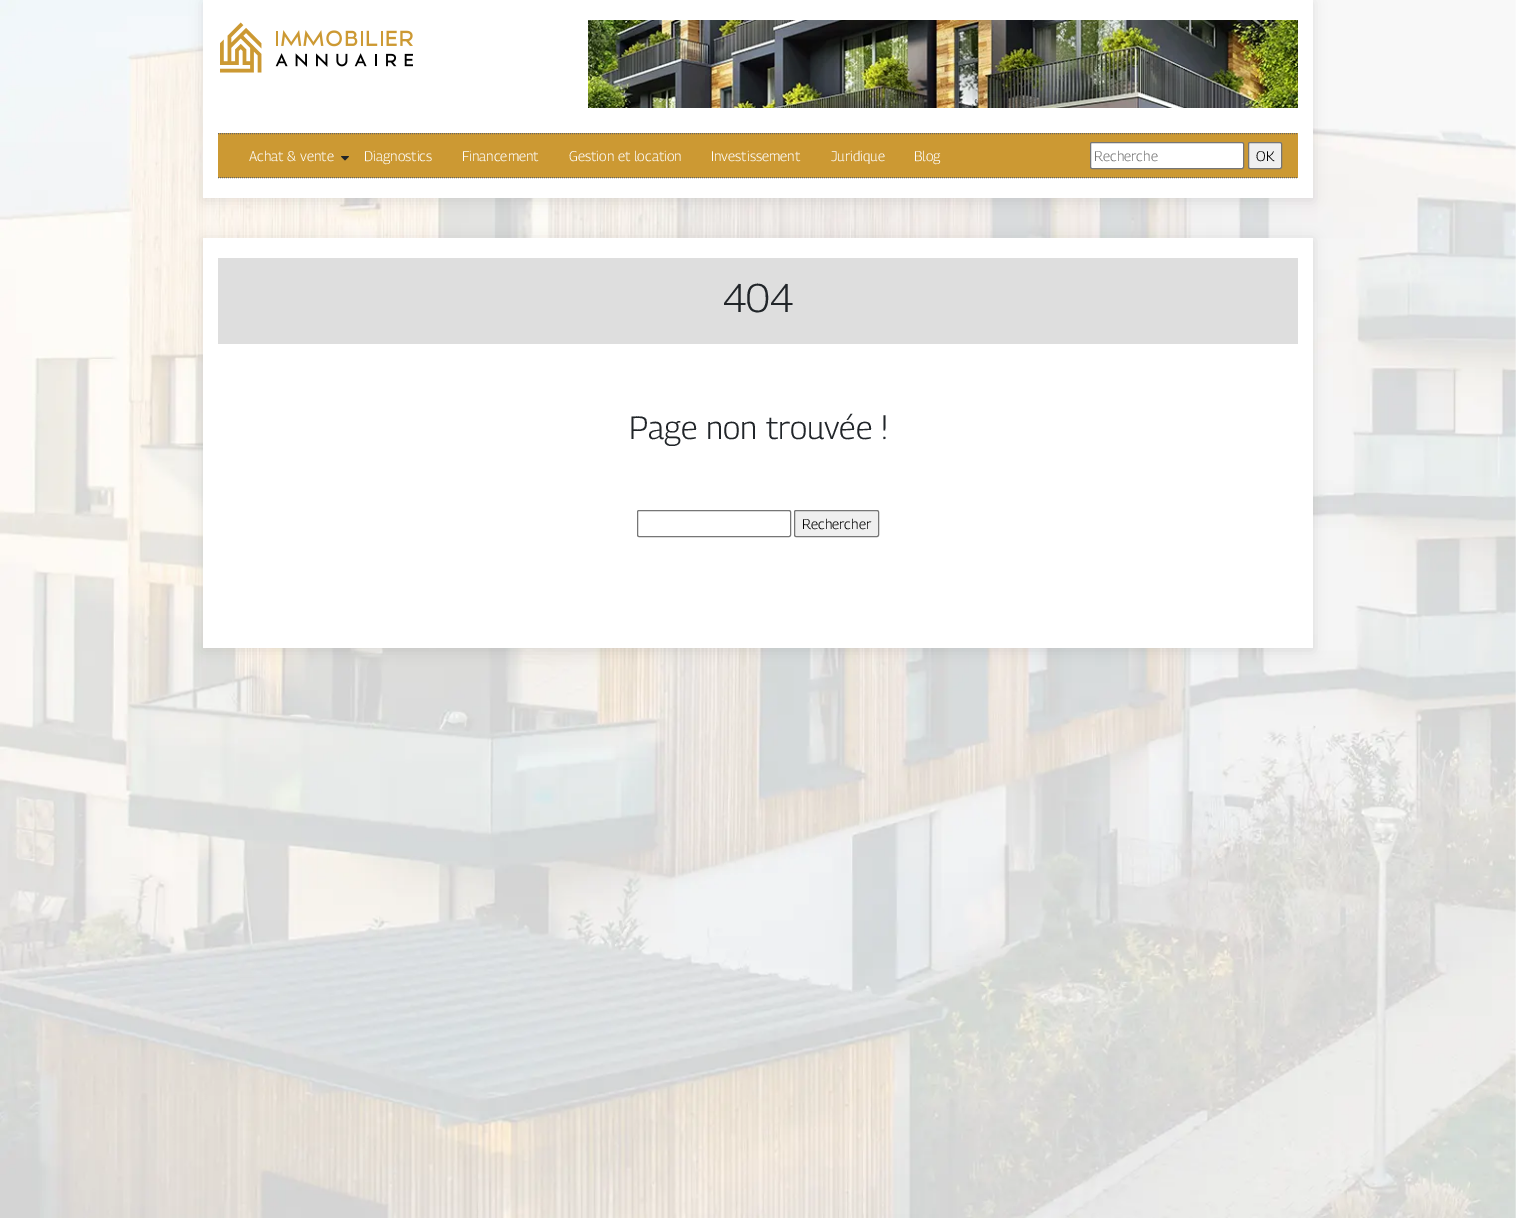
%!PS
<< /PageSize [1516 1218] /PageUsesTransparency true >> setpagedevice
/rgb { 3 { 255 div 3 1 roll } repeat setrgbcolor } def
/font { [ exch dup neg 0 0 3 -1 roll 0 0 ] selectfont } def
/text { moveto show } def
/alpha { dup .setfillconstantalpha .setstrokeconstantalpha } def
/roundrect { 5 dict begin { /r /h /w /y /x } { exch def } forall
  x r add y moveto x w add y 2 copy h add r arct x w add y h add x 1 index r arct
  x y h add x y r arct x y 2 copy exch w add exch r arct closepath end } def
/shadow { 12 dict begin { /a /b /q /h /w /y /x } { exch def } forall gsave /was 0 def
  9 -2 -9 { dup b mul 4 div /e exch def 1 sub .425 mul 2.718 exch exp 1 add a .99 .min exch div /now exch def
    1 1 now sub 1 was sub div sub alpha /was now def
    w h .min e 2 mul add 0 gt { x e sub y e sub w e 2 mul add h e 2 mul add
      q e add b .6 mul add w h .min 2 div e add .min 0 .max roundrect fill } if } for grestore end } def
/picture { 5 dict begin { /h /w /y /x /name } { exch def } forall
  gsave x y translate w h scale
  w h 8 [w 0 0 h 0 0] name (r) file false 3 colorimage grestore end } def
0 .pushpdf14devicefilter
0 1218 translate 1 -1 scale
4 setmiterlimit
255 255 255 rgb
0 0 1516 1218 rectfill
(img_01.rgb) 0 0 1516 1218 picture
0 0 0 rgb
203 2 1110 198 0 6.5 0.1 shadow
255 255 255 rgb
203 0 1110 198 rectfill
(img_02.rgb) 220 22 193 51 picture
(img_03.rgb) 588 20 710 88 picture
204 153 51 rgb
218 133 1080 45 rectfill
102 102 102 rgb
[1 1] 0 setdash
218 133.5 moveto 1080 0 rlineto stroke
218 177.5 moveto 1080 0 rlineto stroke
(img_04.rgb) 341 156 8 5 picture
255 255 255 rgb
1090.5 142.5 153 26 1.5 roundrect gsave fill grestore
118 118 118 rgb
[] 0 setdash
stroke
239 239 239 rgb
1248.5 142.5 33 26 1.5 roundrect gsave fill grestore
118 118 118 rgb
stroke
0 0 0 rgb
203 240 1110 410 0 6.5 0.1 shadow
255 255 255 rgb
203 238 1110 410 rectfill
222 222 222 rgb
218 258 1080 86 rectfill
118 118 118 rgb
637.5 510.5 153 26 1.5 roundrect stroke
239 239 239 rgb
794.5 510.5 84 26 1.5 roundrect gsave fill grestore
118 118 118 rgb
stroke
/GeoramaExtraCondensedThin-Thin 14 font
255 255 255 rgb
(Achat & vente) 249 161 text
(Diagnostics) 364 161 text
(Financement) 462 161 text
(Gestion et location) 569 161 text
(Investissement) 711 161 text
(Juridique) 831 161 text
(Blog) 914 161 text
117 117 117 rgb
(Recherche) 1094 161 text
0 0 0 rgb
(OK) 1256 161 text
/GeoramaExtraCondensedThin-Thin 40 font
33 37 41 rgb
(404) 723 312 text
/GeoramaExtraCondensedThin-Thin 32 font
(Page non trouvée !) 629 439 text
/GeoramaExtraCondensedThin-Thin 14 font
0 0 0 rgb
(Rechercher) 802 529 text
.poppdf14devicefilter showpage
